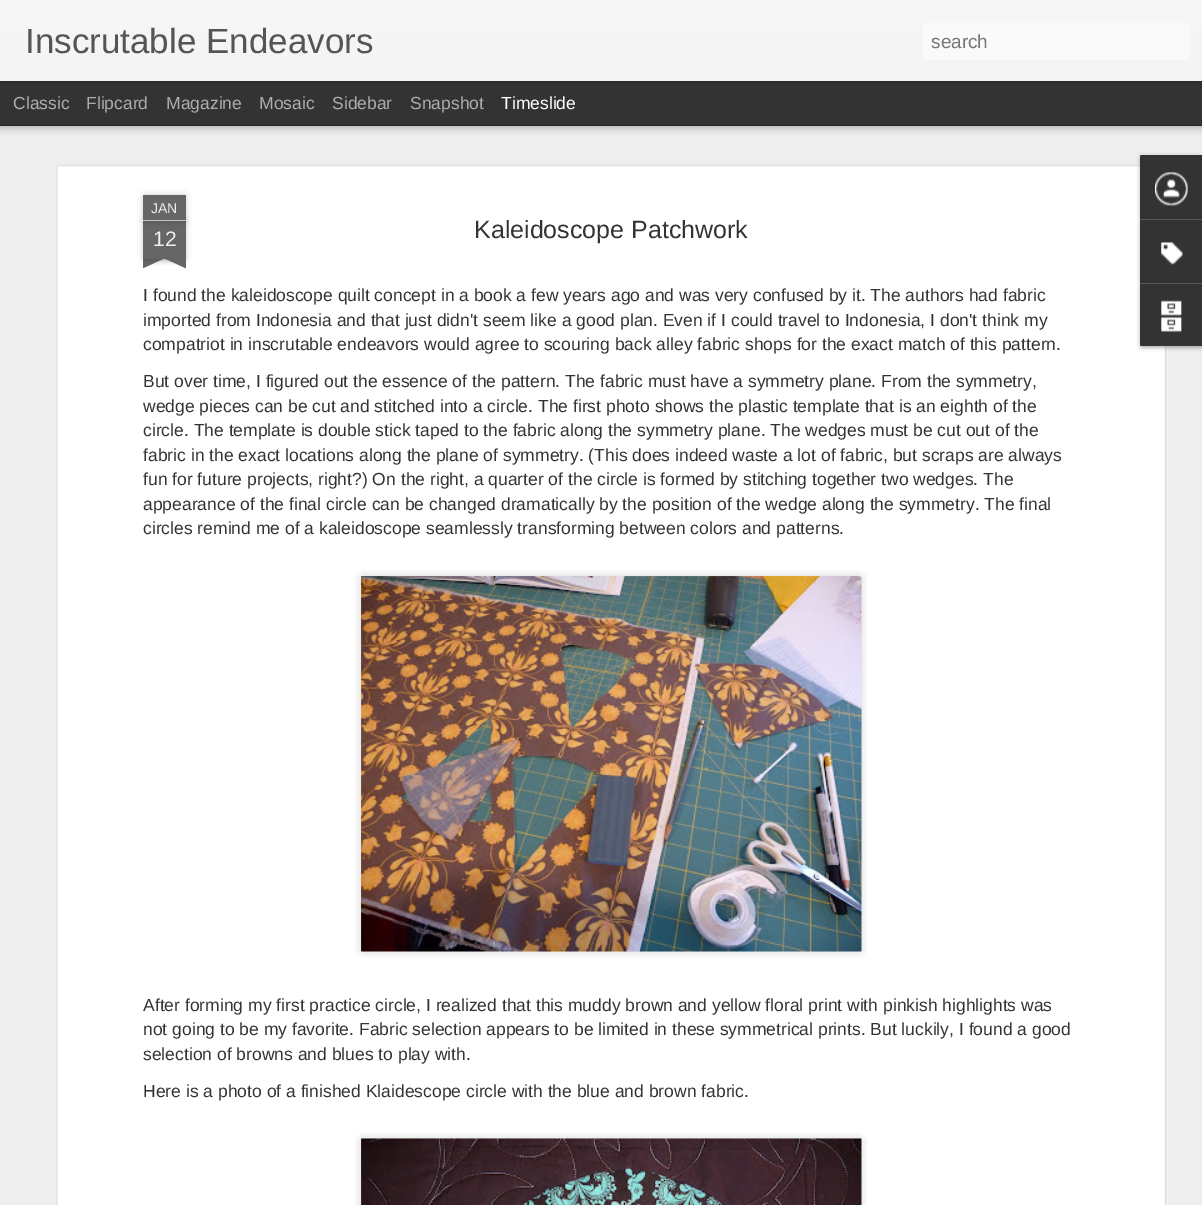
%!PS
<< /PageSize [1202 1205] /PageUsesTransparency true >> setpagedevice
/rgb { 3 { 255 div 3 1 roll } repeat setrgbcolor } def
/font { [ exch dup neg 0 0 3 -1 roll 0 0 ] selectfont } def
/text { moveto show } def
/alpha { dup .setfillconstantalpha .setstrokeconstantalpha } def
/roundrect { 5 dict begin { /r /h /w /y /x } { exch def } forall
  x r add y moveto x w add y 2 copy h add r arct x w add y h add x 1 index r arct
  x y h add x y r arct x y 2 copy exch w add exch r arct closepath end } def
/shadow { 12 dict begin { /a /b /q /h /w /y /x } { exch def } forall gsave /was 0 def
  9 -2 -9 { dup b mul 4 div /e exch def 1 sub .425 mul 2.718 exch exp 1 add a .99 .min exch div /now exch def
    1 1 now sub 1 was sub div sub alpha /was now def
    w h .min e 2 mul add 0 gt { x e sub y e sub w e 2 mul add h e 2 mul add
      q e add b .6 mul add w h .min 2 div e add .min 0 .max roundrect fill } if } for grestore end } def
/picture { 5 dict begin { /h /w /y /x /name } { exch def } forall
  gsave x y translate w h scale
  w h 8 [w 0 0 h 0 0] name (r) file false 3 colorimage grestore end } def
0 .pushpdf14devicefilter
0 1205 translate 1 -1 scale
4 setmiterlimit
51 51 51 rgb
0 0 1202 1205 rectfill
238 238 238 rgb
0 126 1202 1079 rectfill
0 0 0 rgb
0 81 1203 44 0 5 0.5 shadow
51 51 51 rgb
0 81 1202 44 rectfill
0 0 0 rgb
0 0 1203 81 0 3 0.3 shadow
gsave 0 0 moveto 1202 0 rlineto 0 81 rlineto -1202 0 rlineto closepath clip newpath
<< /ShadingType 2 /ColorSpace /DeviceRGB /Coords [0 0 0 81] /Extend [true true] /Function << /FunctionType 2 /Domain [0 1] /C0 [0.969 0.969 0.969] /C1 [0.957 0.957 0.957] /N 1 >> >> shfill grestore
250 250 250 rgb
923 23 267 37 4 roundrect fill
255 255 255 rgb
55 164 1113 1041 rectfill
(img_01.rgb) 55 164 1113 1041 picture
0 0 0 rgb
143 221 43 38 0 3 0.2 shadow
102 102 102 rgb
143 221 43 38 rectfill
0 0 0 rgb
143 195 43 26 1 3 0.2 shadow
102 102 102 rgb
144 195 moveto 41 0 rlineto 0.5 0 1 0.5 1 1 rcurveto 0 25 rlineto -43 0 rlineto 0 -25 rlineto 0 -0.5 0.5 -1 1 -1 rcurveto closepath fill
194 194 194 rgb
143 220 43 1 rectfill
gsave
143 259 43 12 rectclip
0 0 0 rgb
131 246 63 13 0 3 0.2 shadow
grestore
gsave
143 259 43 12 rectclip
102 102 102 rgb
132 260 moveto 56 -26 rlineto 5 11 rlineto -56 26 rlineto closepath fill
grestore
gsave
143 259 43 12 rectclip
0 0 0 rgb
135 246 63 13 0 3 0.2 shadow
grestore
gsave
143 259 43 12 rectclip
102 102 102 rgb
141 234 moveto 56 26 rlineto -5 11 rlineto -57 -26 rlineto closepath fill
grestore
(img_02.rgb) 355 570 512 388 picture
(img_03.rgb) 361 576 501 376 picture
(img_04.rgb) 355 1133 512 72 picture
(img_05.rgb) 361 1138 501 67 picture
0 0 0 rgb
1140 156 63 192 2.5 2 0.3 shadow
51 51 51 rgb
1142.5 155 moveto 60.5 0 rlineto 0 191 rlineto -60.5 0 rlineto -1.5 0 -2.5 -1 -2.5 -2.5 rcurveto 0 -186 rlineto 0 -1.5 1 -2.5 2.5 -2.5 rcurveto closepath fill
1142.5 155 moveto 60.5 0 rlineto 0 64 rlineto -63 0 rlineto 0 -61.5 rlineto 0 -1.5 1 -2.5 2.5 -2.5 rcurveto closepath fill
(img_06.rgb) 1155 172 33 34 picture
88 88 88 rgb
1140 219 62 1 rectfill
(img_07.rgb) 1161 242 22 23 picture
51 51 51 rgb
1140 283 moveto 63 0 rlineto 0 63 rlineto -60.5 0 rlineto -1.5 0 -2.5 -1 -2.5 -2.5 rcurveto closepath fill
88 88 88 rgb
1140 283 62 1 rectfill
(img_08.rgb) 1161 300 21 32 picture
/LiberationSans-Regular 35 font
85 85 85 rgb
(Inscrutable Endeavors) 25 53 text
/LiberationSans-Regular 19 font
117 117 117 rgb
(search) 931 48 text
/LiberationSans-Regular 17.5 font
173 173 173 rgb
(Classic) 13 109 text
(Flipcard) 86 109 text
(Magazine) 166 109 text
(Mosaic) 259 109 text
(Sidebar) 332 109 text
(Snapshot) 410 109 text
255 255 255 rgb
(Timeslide) 501 109 text
/LiberationSans-Regular 14 font
238 238 238 rgb
(JAN) 151 213 text
/LiberationSans-Regular 21 font
(12) 153 246 text
/LiberationSans-Regular 25 font
51 51 51 rgb
(Kaleidoscope Patchwork) 474 238 text
/LiberationSans-Regular 17.5 font
(I found the kaleidoscope quilt concept in a book a few years ago and was very confused by it. The authors had fabric) 143 301 text
(imported from Indonesia and that just didn't seem like a good plan. Even if I could travel to Indonesia, I don't think my) 143 326 text
(compatriot in inscrutable endeavors would agree to scouring back alley fabric shops for the exact match of this pattern.) 143 350 text
(But over time, I figured out the essence of the pattern. The fabric must have a symmetry plane. From the symmetry,) 143 387 text
(wedge pieces can be cut and stitched into a circle. The first photo shows the plastic template that is an eighth of the) 143 412 text
(circle. The template is double stick taped to the fabric along the symmetry plane. The wedges must be cut out of the) 143 436 text
(fabric in the exact locations along the plane of symmetry. \(This does indeed waste a lot of fabric, but scraps are always) 143 461 text
(fun for future projects, right?\) On the right, a quarter of the circle is formed by stitching together two wedges. The) 143 485 text
(appearance of the final circle can be changed dramatically by the position of the wedge along the symmetry. The final) 143 510 text
(circles remind me of a kaleidoscope seamlessly transforming between colors and patterns.) 143 534 text
(After forming my first practice circle, I realized that this muddy brown and yellow floral print with pinkish highlights was) 143 1011 text
(not going to be my favorite. Fabric selection appears to be limited in these symmetrical prints. But luckily, I found a good) 143 1035 text
(selection of browns and blues to play with.) 143 1060 text
(Here is a photo of a finished Klaidescope circle with the blue and brown fabric.) 143 1097 text
.poppdf14devicefilter showpage
